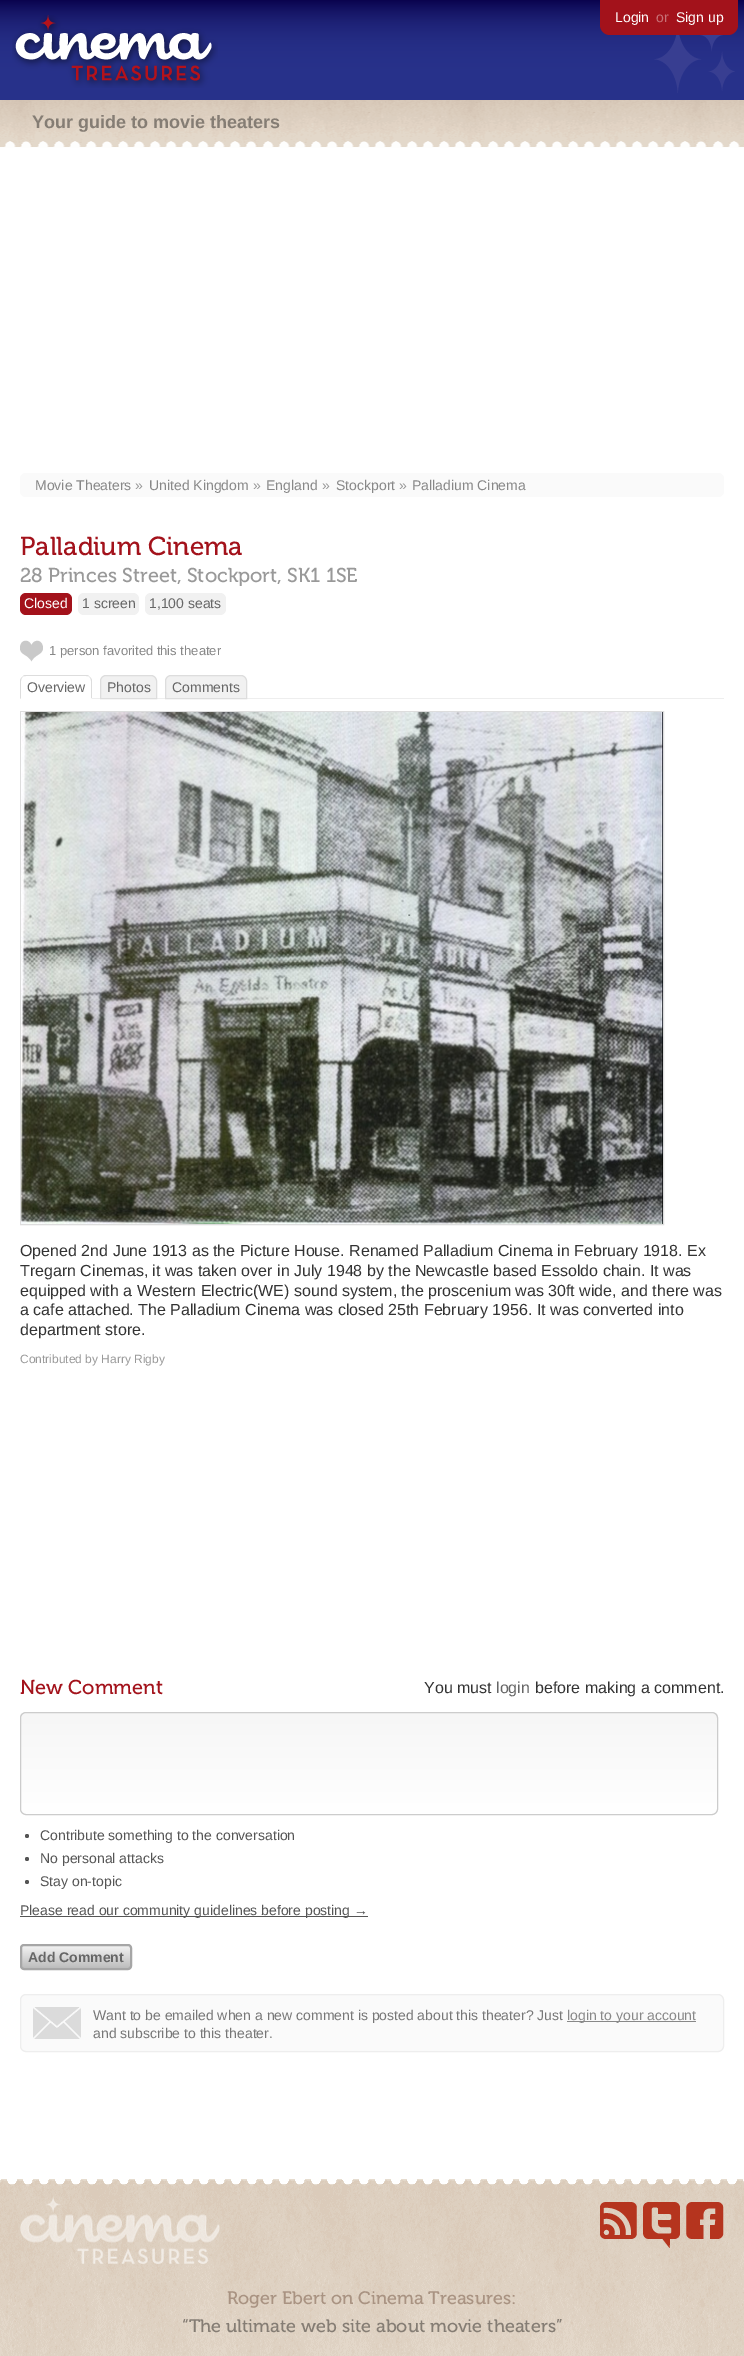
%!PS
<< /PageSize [744 2356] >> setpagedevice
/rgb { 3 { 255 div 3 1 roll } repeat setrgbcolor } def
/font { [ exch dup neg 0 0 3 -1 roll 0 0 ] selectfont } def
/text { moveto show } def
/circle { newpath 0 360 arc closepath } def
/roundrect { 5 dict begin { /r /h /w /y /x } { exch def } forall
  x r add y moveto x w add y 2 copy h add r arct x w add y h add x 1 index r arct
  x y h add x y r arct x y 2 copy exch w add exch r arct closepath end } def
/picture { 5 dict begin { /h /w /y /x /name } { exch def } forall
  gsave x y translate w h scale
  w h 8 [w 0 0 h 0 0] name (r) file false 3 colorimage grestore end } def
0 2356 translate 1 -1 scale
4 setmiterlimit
255 255 255 rgb
0 0 744 2356 rectfill
(img_01.rgb) 0 0 744 100 picture
(img_02.rgb) 12 15 206 73 picture
163 18 27 rgb
600 0 moveto 138 0 rlineto 0 25 rlineto 0 5.5 -4.5 10 -10 10 rcurveto -118 0 rlineto -5.5 0 -10 -4.5 -10 -10 rcurveto closepath fill
(img_03.rgb) 654 35 81 58 picture
(img_04.rgb) 0 100 744 48 picture
250 250 250 rgb
20 473 704 24 6 roundrect fill
163 18 27 rgb
20 593 52 22 6 roundrect fill
241 241 241 rgb
78 593 61 22 6 roundrect fill
145 593 81 22 6 roundrect fill
(img_05.rgb) 20 640 23 22 picture
238 238 238 rgb
92 698 632 1 rectfill
221 221 221 rgb
26 675 moveto -2 0 -3 1 -4 2 rcurveto 1 -1 2 -1 4 -1 rcurveto 60 0 rlineto 2 0 3 0 4 1 rcurveto -1 -1 -2 -2 -4 -2 rcurveto closepath fill
92 699 moveto 0 -18 rlineto 0 -1.5 -1 -3 -2 -4 rcurveto -0.5 0.5 rlineto 1 0.5 1.5 2 1.5 3.5 rcurveto 0 17 rlineto closepath fill
255 255 255 rgb
92 699 moveto -1 -1 rlineto -70 0 rlineto -1 1 rlineto closepath fill
221 221 221 rgb
20 699 moveto 1 -1 rlineto 0 -17 rlineto 0 -1.5 0.5 -3 1.5 -3.5 rcurveto -0.5 -0.5 rlineto -1 1 -2 2.5 -2 4 rcurveto closepath fill
241 241 241 rgb
106 675.5 moveto 45 0 rlineto 3 0 5.5 2.5 5.5 5.5 rcurveto 0 17.5 rlineto -56 0 rlineto 0 -17.5 rlineto 0 -3 2.5 -5.5 5.5 -5.5 rcurveto closepath gsave fill grestore
221 221 221 rgb
stroke
241 241 241 rgb
171 675.5 moveto 70 0 rlineto 3 0 5.5 2.5 5.5 5.5 rcurveto 0 17.5 rlineto -81 0 rlineto 0 -17.5 rlineto 0 -3 2.5 -5.5 5.5 -5.5 rcurveto closepath gsave fill grestore
221 221 221 rgb
stroke
20.5 711.5 643 513 rectstroke
(img_06.rgb) 21 712 642 512 picture
gsave
20 1712 698 103 6 roundrect clip newpath
gsave 20 1713 moveto 698 0 rlineto 0 101 rlineto -698 0 rlineto closepath clip newpath
<< /ShadingType 2 /ColorSpace /DeviceRGB /Coords [369 1713 369 1814] /Extend [true true] /Function << /FunctionType 2 /Domain [0 1] /C0 [0.965 0.965 0.965] /C1 [1 1 1] /N 1 >> >> shfill grestore
grestore
204 204 204 rgb
20.5 1712.5 697 102 5.5 roundrect stroke
85 85 85 rgb
27 1836 2 circle fill
27 1859 2 circle fill
27 1882 2 circle fill
20 1916 348 1 rectfill
gsave 22 1946 108 22 2 roundrect clip newpath
<< /ShadingType 2 /ColorSpace /DeviceRGB /Coords [76 1946 76 1968] /Extend [true true] /Function << /FunctionType 2 /Domain [0 1] /C0 [0.949 0.949 0.949] /C1 [0.741 0.741 0.741] /N 1 >> >> shfill grestore
166 166 166 rgb
2 setlinewidth
21 1945 110 24 3 roundrect stroke
250 250 250 rgb
20.5 1994.5 703 57 5.5 roundrect gsave fill grestore
238 238 238 rgb
1 setlinewidth
stroke
(img_07.rgb) 33 2007 48 32 picture
136 136 136 rgb
567 2021 129 1 rectfill
(img_08.rgb) 0 2179 744 177 picture
(img_09.rgb) 20 2196 200 68 picture
(img_10.rgb) 600 2202 37 37 picture
(img_11.rgb) 643 2202 37 46 picture
(img_12.rgb) 686 2202 38 37 picture
/LiberationSans-Regular 14 font
255 255 255 rgb
(Login) 615 22 text
200 113 118 rgb
(or) 656 22 text
255 255 255 rgb
(Sign up) 676 22 text
/LiberationSans-Bold 18 font
133 125 116 rgb
(Your guide to movie theaters) 32 128 text
/LiberationSans-Regular 14 font
136 136 136 rgb
(Movie Theaters) 35 490 text
153 153 153 rgb
(») 135 490 text
136 136 136 rgb
(United Kingdom) 149 490 text
153 153 153 rgb
(») 253 490 text
136 136 136 rgb
(England) 266 490 text
153 153 153 rgb
(») 322 490 text
136 136 136 rgb
(Stockport) 336 490 text
153 153 153 rgb
(») 399 490 text
136 136 136 rgb
(Palladium Cinema) 412 490 text
/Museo-Regular 26 font
163 18 27 rgb
(Palladium Cinema) 20 555 text
/Museo-Regular 20 font
153 153 153 rgb
(28 Princes Street, Stockport, SK1 1SE) 20 582 text
/LiberationSans-Regular 14 font
255 255 255 rgb
(Closed) 24 608 text
102 102 102 rgb
(1 screen) 82 608 text
(1,100 seats) 149 608 text
/LiberationSans-Regular 13 font
136 136 136 rgb
(1 person favorited this theater) 49 655 text
/LiberationSans-Regular 14 font
102 102 102 rgb
(Overview) 27 692 text
(Photos) 107 692 text
(Comments) 172 692 text
/LiberationSans-Regular 16 font
51 51 51 rgb
(Opened 2nd June 1913 as the Picture House. Renamed Palladium Cinema in February 1918. Ex) 20 1256 text
(Tregarn Cinemas, it was taken over in July 1948 by the Newcastle based Essoldo chain. It was) 20 1276 text
(equipped with a Western Electric\(WE\) sound system, the proscenium was 30ft wide, and there was) 20 1296 text
(a cafe attached. The Palladium Cinema was closed 25th February 1956. It was converted into) 20 1315 text
(department store.) 20 1335 text
/LiberationSans-Regular 12 font
153 153 153 rgb
(Contributed by Harry Rigby) 20 1363 text
/Museo-Regular 20 font
163 18 27 rgb
(New Comment) 20 1694 text
/LiberationSans-Regular 16 font
51 51 51 rgb
(You must) 424 1693 text
102 102 102 rgb
(login) 496 1693 text
51 51 51 rgb
(before making a comment.) 535 1693 text
/LiberationSans-Regular 14 font
85 85 85 rgb
(Contribute something to the conversation) 40 1840 text
(No personal attacks) 40 1863 text
(Stay on-topic) 40 1886 text
(Please read our community guidelines before posting →) 20 1915 text
/LiberationSans-Bold 14 font
102 102 102 rgb
(Add Comment) 28 1962 text
/LiberationSans-Regular 14 font
119 119 119 rgb
(Want to be emailed when a new comment is posted about this theater? Just) 93 2020 text
136 136 136 rgb
(login to your account) 567 2020 text
119 119 119 rgb
(and subscribe to this theater.) 93 2038 text
/Museo-Regular 18 font
169 147 130 rgb
(Roger Ebert on Cinema Treasures:) 227 2304 text
133 125 116 rgb
(“The ultimate web site about movie theaters”) 182 2332 text
showpage
